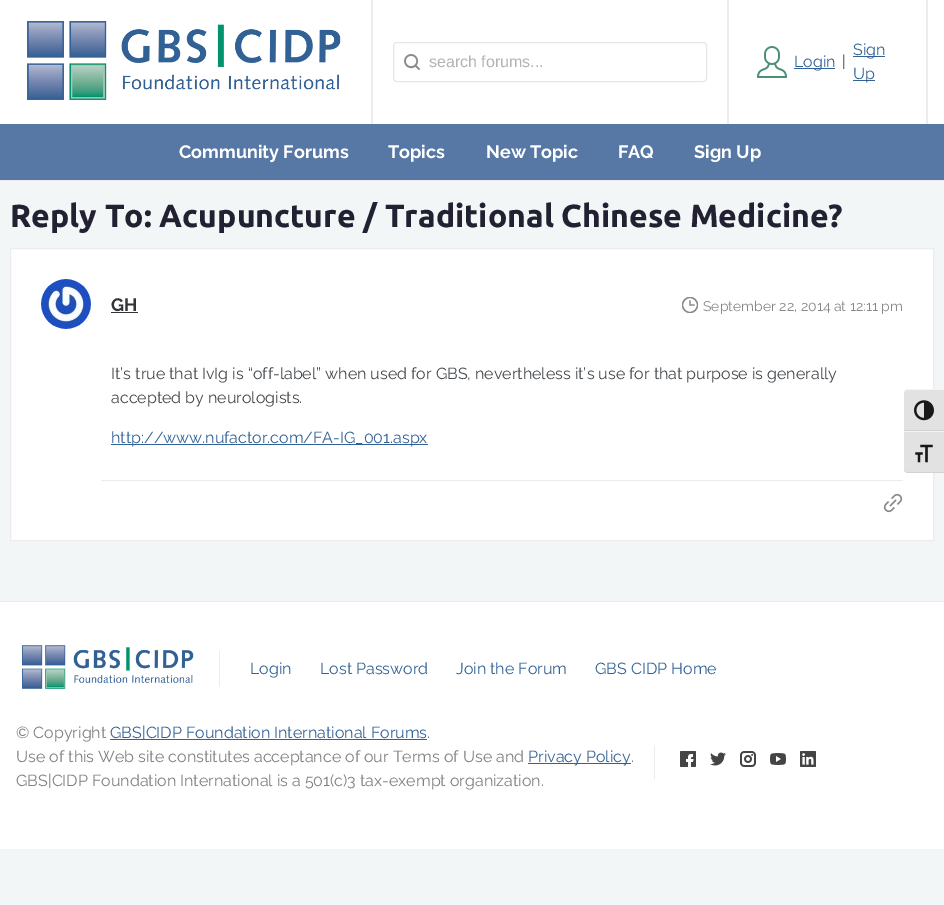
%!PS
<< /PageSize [944 905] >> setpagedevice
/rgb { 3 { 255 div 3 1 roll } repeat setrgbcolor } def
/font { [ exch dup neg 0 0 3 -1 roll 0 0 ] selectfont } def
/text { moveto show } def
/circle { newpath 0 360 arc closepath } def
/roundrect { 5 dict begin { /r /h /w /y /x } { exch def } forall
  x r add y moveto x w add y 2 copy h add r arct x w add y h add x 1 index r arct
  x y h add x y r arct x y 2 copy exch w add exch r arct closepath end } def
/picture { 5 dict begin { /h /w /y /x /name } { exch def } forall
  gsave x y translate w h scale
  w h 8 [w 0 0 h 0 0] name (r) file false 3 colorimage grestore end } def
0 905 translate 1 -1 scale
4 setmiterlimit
242 246 247 rgb
0 0 944 905 rectfill
255 255 255 rgb
0 0 944 124 rectfill
236 236 236 rgb
0 180 944 1 rectfill
371 0 2 124 rectfill
(img_01.rgb) 27 21 314 79 picture
727 0 2 124 rectfill
(img_02.rgb) 404 54 16 16 picture
230 230 230 rgb
393.5 42.5 313 39 3.5 roundrect stroke
236 236 236 rgb
926 0 2 124 rectfill
(img_03.rgb) 757 46 30 32 picture
50 98 149 rgb
794 68 41 1 rectfill
853 56 32 1 rectfill
853 80 22 1 rectfill
87 120 164 rgb
0 124 944 56 rectfill
255 255 255 rgb
10.5 248.5 moveto 923 0 rlineto 0 292 rlineto -923 0 rlineto closepath gsave fill grestore
236 236 236 rgb
stroke
(img_04.rgb) 41 279 50 50 picture
50 53 56 rgb
111 312 27 1 rectfill
gsave
682 297 16 16 rectclip
134 137 139 rgb
1.3 setlinewidth
690 305 7.5 circle stroke
grestore
134 137 139 rgb
1.3 setlinewidth
2 setlinecap
690 301 moveto 0 4 rlineto 4 0 rlineto stroke
50 98 149 rgb
111 444 317 1 rectfill
235 235 235 rgb
101 480 802 1 rectfill
(img_05.rgb) 883 493 20 20 picture
255 255 255 rgb
0 602 944 247 rectfill
236 236 236 rgb
0 601 944 1 rectfill
(img_06.rgb) 22 645 172 44 picture
219 651 1 36 rectfill
50 98 149 rgb
110 739 317 1 rectfill
528 763 103 1 rectfill
236 236 236 rgb
654 745 1 34 rectfill
(img_07.rgb) 680 751 16 16 picture
(img_08.rgb) 710 752 16 14 picture
(img_09.rgb) 740 751 16 16 picture
(img_10.rgb) 770 753 16 12 picture
(img_11.rgb) 800 751 16 16 picture
226 226 226 rgb
908 389 moveto 36 0 rlineto 0 42 rlineto -40 0 rlineto 0 -38 rlineto 0 -2 2 -4 4 -4 rcurveto closepath fill
245 245 245 rgb
908 390 moveto 36 0 rlineto 0 -1 rlineto -36 0 rlineto -2 0 -4 2 -4 4 rcurveto 0 -2 2 -3 4 -3 rcurveto closepath fill
210 210 210 rgb
904 430 40 1 rectfill
(img_12.rgb) 914 400 20 21 picture
226 226 226 rgb
904 431 moveto 40 0 rlineto 0 42 rlineto -36 0 rlineto -2 0 -4 -2 -4 -4 rcurveto closepath fill
245 245 245 rgb
904 431 40 1 rectfill
210 210 210 rgb
944 473 moveto 0 -1 rlineto -36 0 rlineto -2 0 -4 -1 -4 -3 rcurveto 0 2 2 4 4 4 rcurveto closepath fill
(img_13.rgb) 915 444 18 19 picture
/LiberationSans-Regular 16 font
179 179 179 rgb
(search forums...) 429 67 text
/Raleway-Regular 16 font
50 98 149 rgb
(Login) 794 67 text
69 73 77 rgb
(|) 842 67 text
50 98 149 rgb
(Sign) 853 55 text
(Up) 853 79 text
/Raleway-Bold 18 font
255 255 255 rgb
(Community Forums) 179 158 text
(Topics) 388 158 text
(New Topic) 486 158 text
(FAQ) 618 158 text
(Sign Up) 694 158 text
/Ubuntu-Bold 32 font
34 33 50 rgb
(Reply To: Acupuncture / Traditional Chinese Medicine?) 10 227 text
/Raleway-Bold 18 font
50 53 56 rgb
(GH) 111 311 text
/Raleway-Regular 14 font
134 137 139 rgb
(September 22, 2014 at 12:11 pm) 703 311 text
/Raleway-Regular 16 font
69 73 77 rgb
(It’s true that IvIg is “off-label” when used for GBS, nevertheless it’s use for that purpose is generally) 111 379 text
(accepted by neurologists.) 111 403 text
50 98 149 rgb
(http://www.nufactor.com/FA-IG_001.aspx) 111 443 text
(Login) 250 674 text
(Lost Password) 320 674 text
(Join the Forum) 456 674 text
(GBS CIDP Home) 595 674 text
128 128 128 rgb
(© Copyright) 16 738 text
50 98 149 rgb
(GBS|CIDP Foundation International Forums) 110 738 text
128 128 128 rgb
(.) 427 738 text
(Use of this Web site constitutes acceptance of our Terms of Use and) 16 762 text
50 98 149 rgb
(Privacy Policy) 528 762 text
128 128 128 rgb
(.) 631 762 text
(GBS|CIDP Foundation International is a 501\(c\)3 tax-exempt organization.) 16 786 text
showpage
